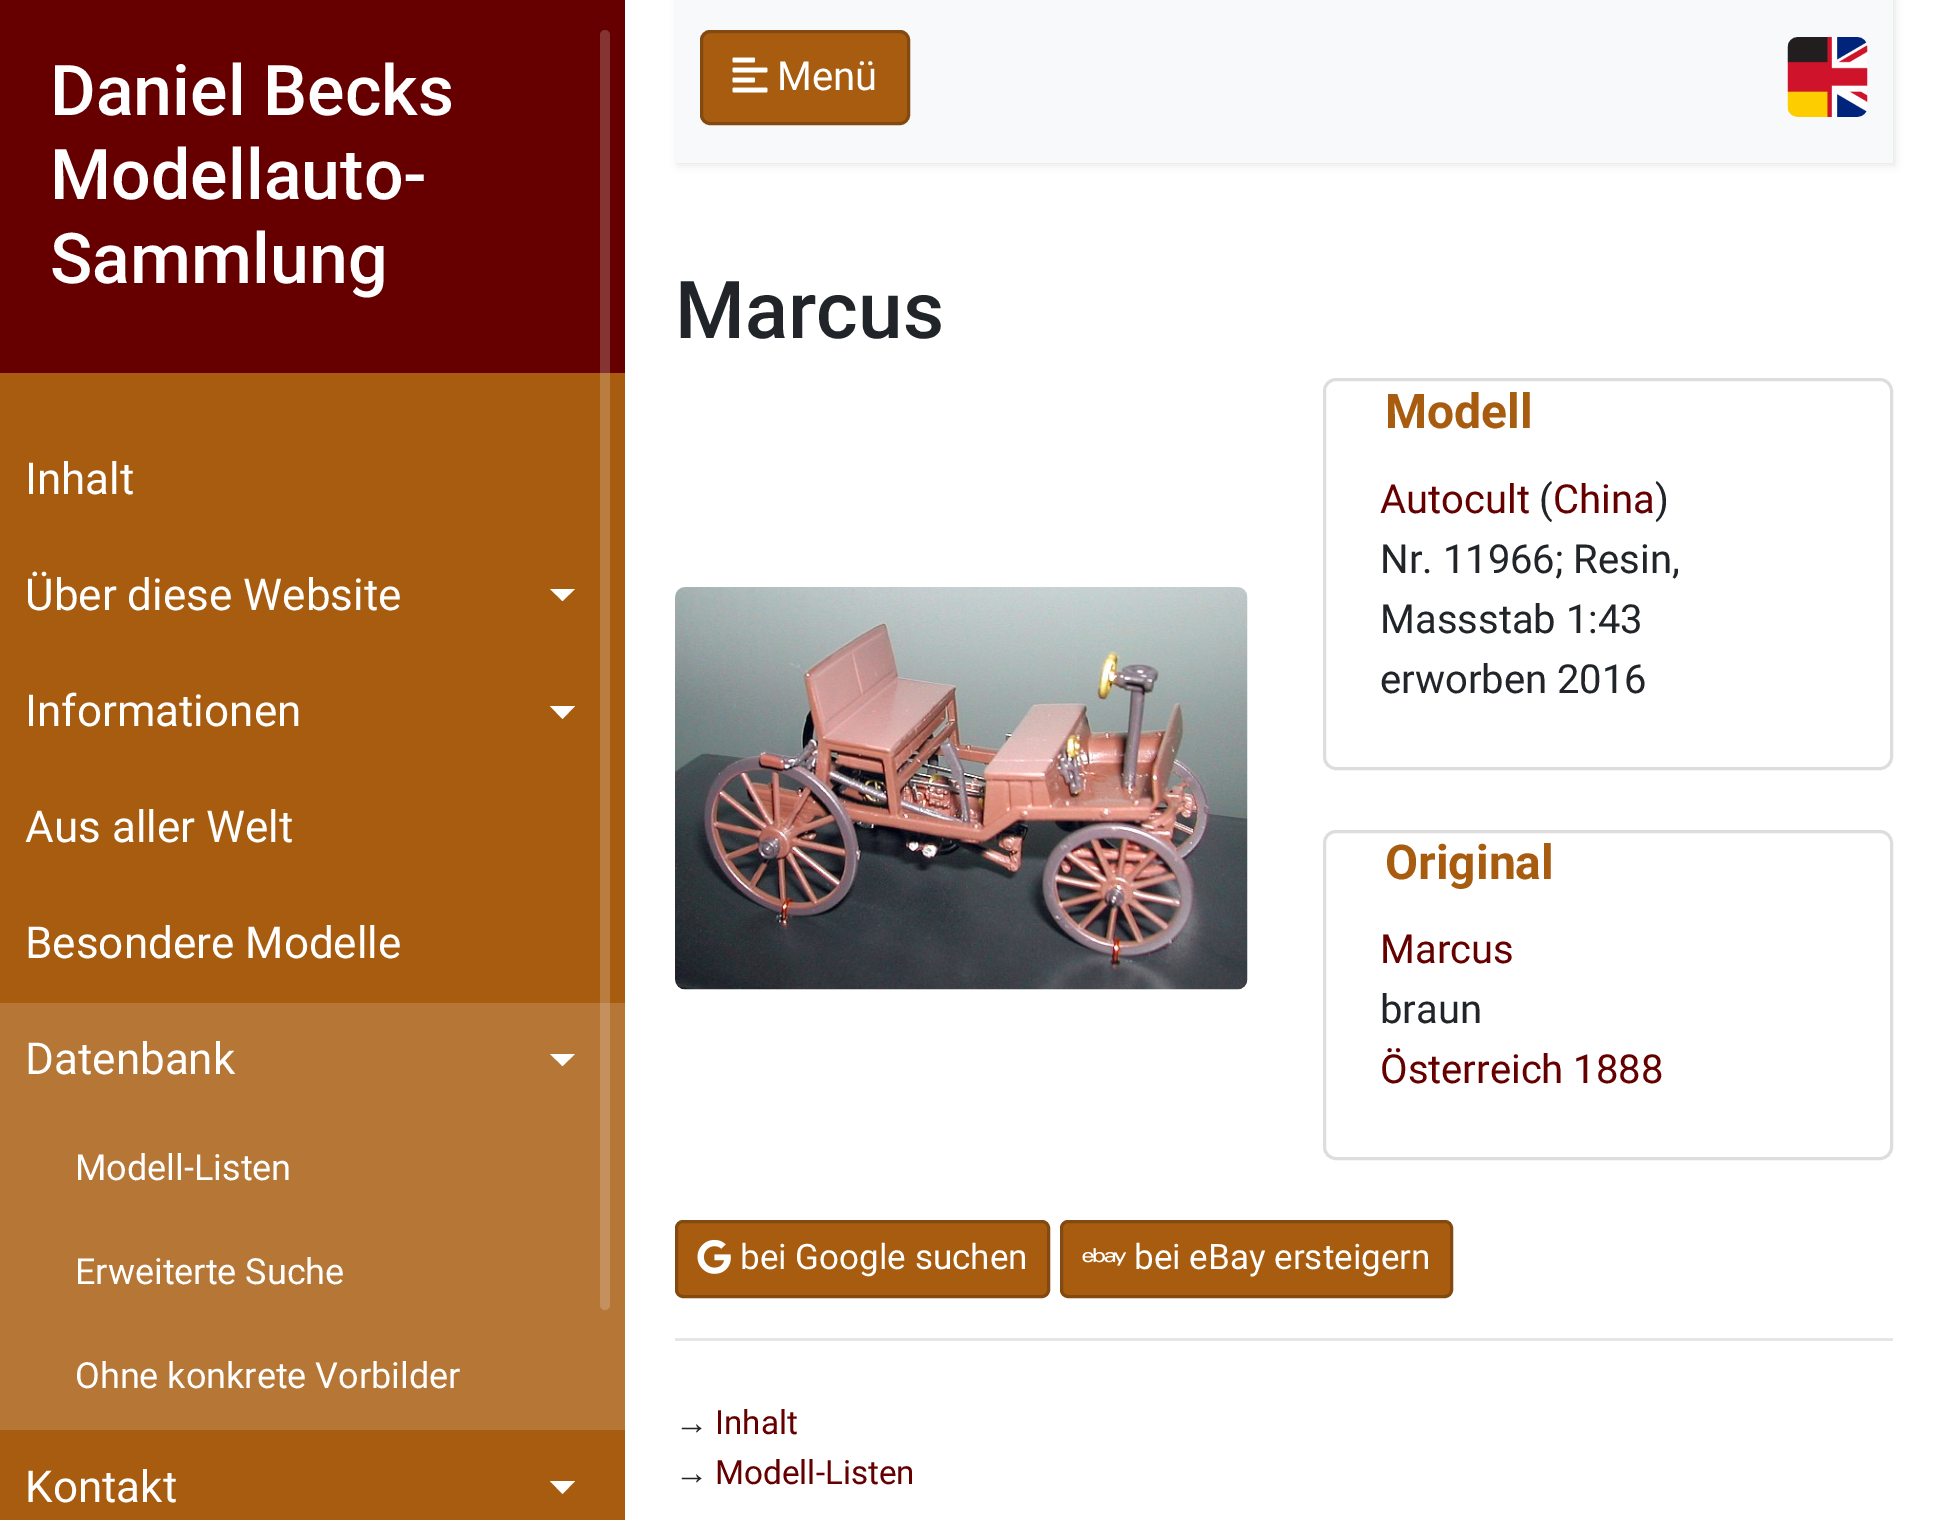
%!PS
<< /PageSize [1942 1520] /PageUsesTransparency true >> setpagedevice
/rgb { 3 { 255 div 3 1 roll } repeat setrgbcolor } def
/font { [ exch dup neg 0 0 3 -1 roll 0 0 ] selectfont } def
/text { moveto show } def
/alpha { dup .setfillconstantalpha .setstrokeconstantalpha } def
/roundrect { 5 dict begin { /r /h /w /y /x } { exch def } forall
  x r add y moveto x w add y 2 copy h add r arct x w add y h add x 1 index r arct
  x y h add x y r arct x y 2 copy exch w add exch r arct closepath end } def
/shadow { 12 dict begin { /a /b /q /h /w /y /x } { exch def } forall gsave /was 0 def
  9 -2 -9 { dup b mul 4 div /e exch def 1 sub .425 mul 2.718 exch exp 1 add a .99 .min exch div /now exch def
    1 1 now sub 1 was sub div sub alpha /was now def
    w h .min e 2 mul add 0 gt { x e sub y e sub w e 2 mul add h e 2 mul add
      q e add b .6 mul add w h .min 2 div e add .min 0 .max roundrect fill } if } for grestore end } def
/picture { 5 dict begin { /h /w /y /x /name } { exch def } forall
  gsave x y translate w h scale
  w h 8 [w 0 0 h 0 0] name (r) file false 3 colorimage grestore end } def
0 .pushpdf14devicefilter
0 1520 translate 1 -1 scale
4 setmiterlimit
255 255 255 rgb
0 0 1942 1520 rectfill
167 92 16 rgb
0 373 625 1147 rectfill
102 0 0 rgb
0 0 625 373 rectfill
255 255 255 rgb
550 589 moveto 25 0 rlineto -12.5 12 rlineto closepath fill
550 706 moveto 25 0 rlineto -12.5 13 rlineto closepath fill
181 118 54 rgb
0 1003 625 427 rectfill
255 255 255 rgb
550 1054 moveto 25 0 rlineto -12.5 12 rlineto closepath fill
550 1481 moveto 25 0 rlineto -12.5 13 rlineto closepath fill
0.2 alpha
600 30 10 1280 5 roundrect fill
1 alpha
0 0 0 rgb
678 -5 1217 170 0 4 0.1 shadow
248 249 250 rgb
676 0 1217 163 rectfill
167 92 16 rgb
701.5 31.5 207 92 8.5 roundrect gsave fill grestore
130 73 16 rgb
3 setlinewidth
stroke
(img_01.rgb) 732 57 36 36 picture
(img_02.rgb) 1787 37 81 80 picture
(img_03.rgb) 675 587 573 403 picture
221 221 221 rgb
1324.5 379.5 567 389 11.5 roundrect stroke
1324.5 831.5 567 327 11.5 roundrect stroke
167 92 16 rgb
676.5 1221.5 372 75 6.5 roundrect gsave fill grestore
130 73 16 rgb
stroke
(img_04.rgb) 697 1239 34 35 picture
167 92 16 rgb
1061.5 1221.5 390 75 6.5 roundrect gsave fill grestore
130 73 16 rgb
stroke
(img_05.rgb) 1082 1248 45 18 picture
230 230 230 rgb
675 1338 1218 3 rectfill
/Roboto-Medium 70 font
255 255 255 rgb
(Daniel Becks) 50 115 text
(Modellauto-) 50 199 text
(Sammlung) 50 283 text
/Roboto-Regular 44 font
(Inhalt) 25 494 text
(Über diese Website) 25 610 text
(Informationen) 25 726 text
(Aus aller Welt) 25 842 text
(Besondere Modelle) 25 958 text
(Datenbank) 25 1074 text
/Roboto-Regular 36 font
(Modell-Listen) 75 1180 text
(Erweiterte Suche) 75 1284 text
(Ohne konkrete Vorbilder) 75 1388 text
/Roboto-Regular 44 font
(Kontakt) 25 1502 text
/Roboto-Regular 40 font
(Menü) 777 90 text
/Roboto-Medium 80 font
33 37 41 rgb
(Marcus) 675 338 text
/Roboto-Bold 48 font
167 92 16 rgb
(Modell) 1385 428 text
/Roboto-Regular 40 font
102 0 0 rgb
(Autocult) 1380 513 text
33 37 41 rgb
(\() 1539 513 text
102 0 0 rgb
(China) 1553 513 text
33 37 41 rgb
(\)) 1655 513 text
(Nr. 11966; Resin,) 1380 573 text
(Massstab 1:43) 1380 633 text
(erworben 2016) 1380 693 text
/Roboto-Bold 48 font
167 92 16 rgb
(Original) 1385 879 text
/Roboto-Regular 40 font
102 0 0 rgb
(Marcus) 1380 963 text
33 37 41 rgb
(braun) 1380 1023 text
102 0 0 rgb
(Österreich 1888) 1380 1083 text
/Roboto-Regular 35 font
255 255 255 rgb
(bei Google suchen) 740 1269 text
(bei eBay ersteigern) 1134 1269 text
/LiberationSans-Regular 33.25 font
33 37 41 rgb
(→) 675 1434 text
/Roboto-Regular 33.25 font
102 0 0 rgb
(Inhalt) 715 1434 text
/LiberationSans-Regular 33.25 font
33 37 41 rgb
(→) 675 1484 text
/Roboto-Regular 33.25 font
102 0 0 rgb
(Modell-Listen) 715 1484 text
.poppdf14devicefilter showpage
